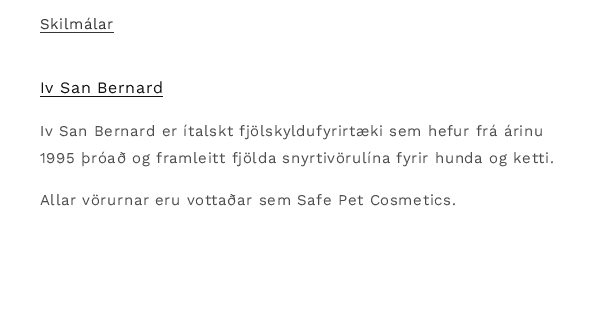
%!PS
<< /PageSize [610 329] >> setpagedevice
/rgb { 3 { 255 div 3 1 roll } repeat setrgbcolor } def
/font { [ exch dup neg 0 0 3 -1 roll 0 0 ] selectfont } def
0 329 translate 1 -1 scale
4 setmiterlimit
255 255 255 rgb
0 0 610 329 rectfill
54 54 54 rgb
40 32 74 1 rectfill
18 18 18 rgb
40 96 123 1 rectfill
/WorkSans-Regular 15 font
54 54 54 rgb
40 29 moveto 0.6 0 (Skilmálar) ashow
/WorkSans-Regular 16 font
18 18 18 rgb
40 93 moveto 0.6 0 (Iv San Bernard) ashow
/WorkSans-Regular 15 font
77 77 77 rgb
40 136 moveto 0.6 0 (Iv San Bernard er ítalskt fjölskyldufyrirtæki sem hefur frá árinu) ashow
40 163 moveto 0.6 0 (1995 þróað og framleitt fjölda snyrtivörulína fyrir hunda og ketti.) ashow
40 205 moveto 0.6 0 (Allar vörurnar eru vottaðar sem Safe Pet Cosmetics.) ashow
showpage
